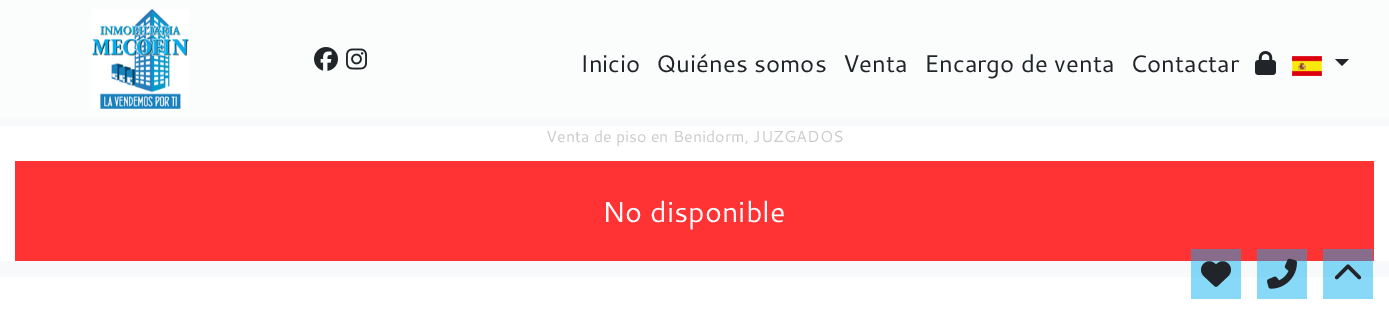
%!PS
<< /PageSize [1389 315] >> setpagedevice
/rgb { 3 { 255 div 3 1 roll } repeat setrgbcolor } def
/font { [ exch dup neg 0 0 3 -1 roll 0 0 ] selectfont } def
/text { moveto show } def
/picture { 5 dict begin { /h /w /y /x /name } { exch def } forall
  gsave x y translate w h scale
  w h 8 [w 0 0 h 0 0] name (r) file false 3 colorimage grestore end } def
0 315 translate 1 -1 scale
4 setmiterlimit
255 255 255 rgb
0 0 1389 315 rectfill
135 217 247 rgb
1191 277 50 22 rectfill
1257 277 50 22 rectfill
1323 277 50 22 rectfill
251 252 252 rgb
0 0 1389 118 rectfill
(img_01.rgb) 91 9 98 100 picture
(img_02.rgb) 314 47 24 24 picture
(img_03.rgb) 346 48 21 22 picture
(img_04.rgb) 1255 51 21 24 picture
(img_05.rgb) 1292 56 30 20 picture
33 37 41 rgb
1335 59 moveto 14 0 rlineto -7 7 rlineto closepath fill
248 249 250 rgb
0 118 1389 159 rectfill
131 214 245 rgb
1191 261 50 16 rectfill
1257 261 50 16 rectfill
1323 261 50 16 rectfill
255 255 255 rgb
0 126 1389 135 rectfill
255 51 51 rgb
15 161 1359 100 rectfill
135 109 139 rgb
1191 249 50 12 rectfill
1257 249 50 12 rectfill
1323 249 50 12 rectfill
(img_06.rgb) 1201 261 30 26 picture
(img_07.rgb) 1267 258 30 31 picture
(img_08.rgb) 1334 264 28 16 picture
/Cantarell-Regular 24 font
33 37 41 rgb
(Inicio) 580 72 text
(Quiénes somos) 656 72 text
(Venta) 843 72 text
(Encargo de venta) 924 72 text
(Contactar) 1130 72 text
/Cantarell-Regular 16 font
204 204 204 rgb
(Venta de piso en Benidorm, JUZGADOS) 546 142 text
/Cantarell-Regular 28.75 font
248 249 250 rgb
(No disponible) 602 222 text
showpage
